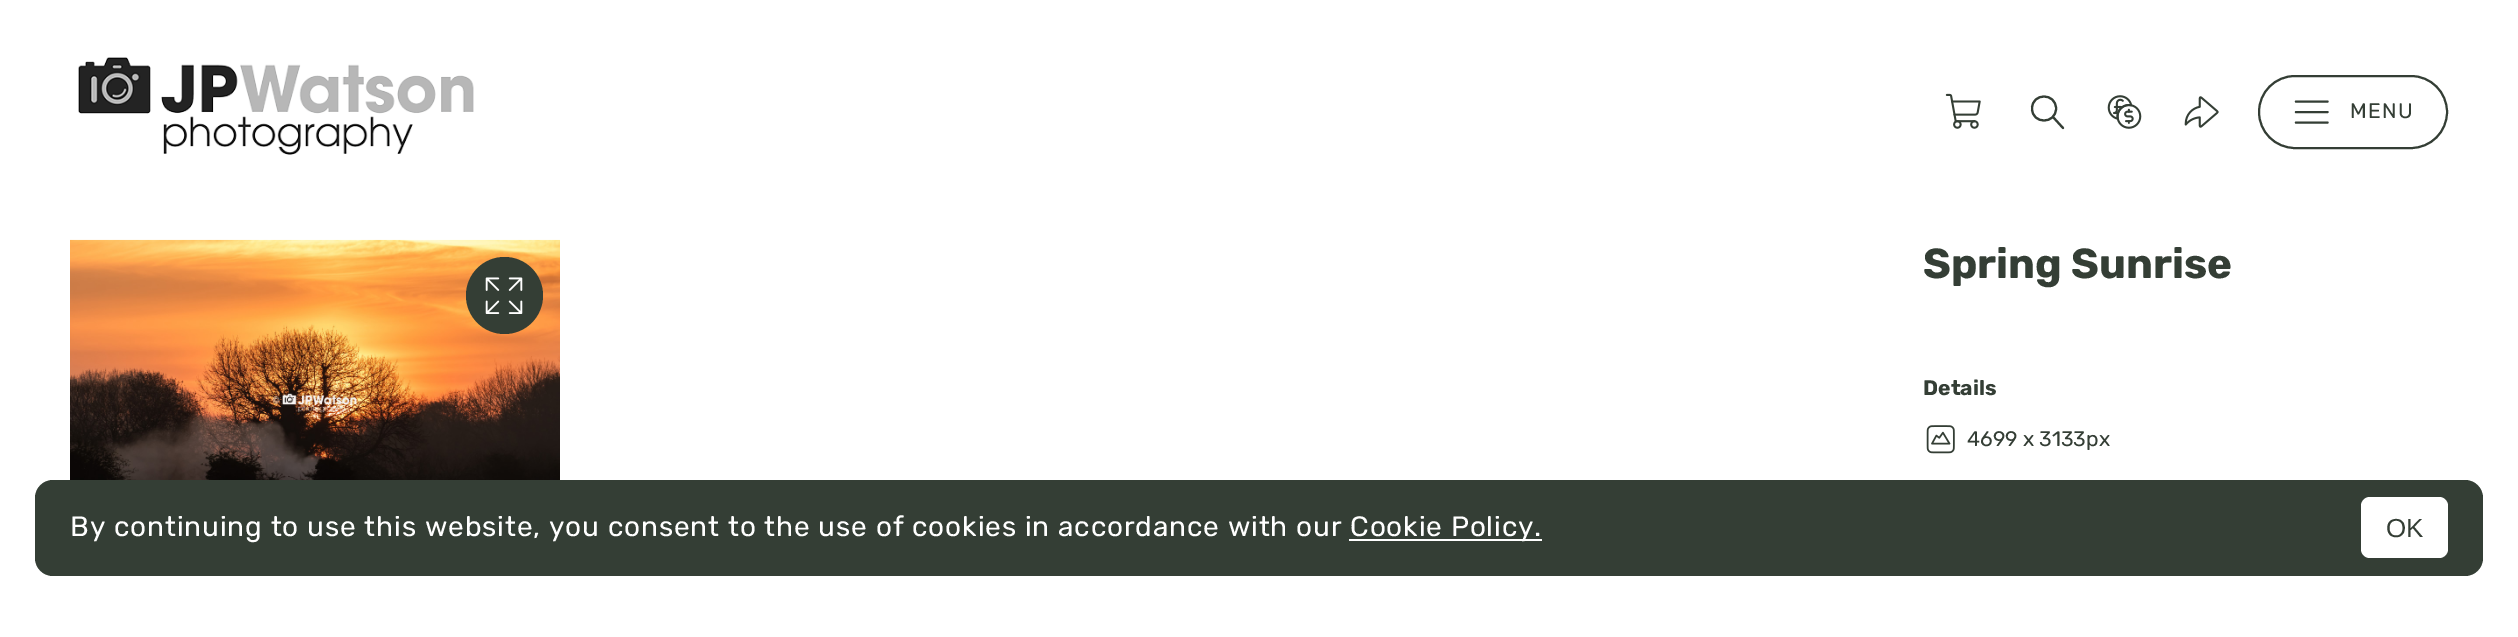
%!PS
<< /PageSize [2518 637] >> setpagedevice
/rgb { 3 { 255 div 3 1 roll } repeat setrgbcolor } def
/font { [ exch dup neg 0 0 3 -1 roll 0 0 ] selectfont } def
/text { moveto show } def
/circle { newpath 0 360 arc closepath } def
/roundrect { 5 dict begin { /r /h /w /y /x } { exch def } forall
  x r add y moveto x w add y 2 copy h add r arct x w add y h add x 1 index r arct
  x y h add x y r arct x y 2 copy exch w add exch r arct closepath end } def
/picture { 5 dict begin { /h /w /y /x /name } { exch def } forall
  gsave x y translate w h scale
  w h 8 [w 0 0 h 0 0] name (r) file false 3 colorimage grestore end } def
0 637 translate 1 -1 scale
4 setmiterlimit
255 255 255 rgb
0 0 2518 637 rectfill
(img_01.rgb) 78 57 396 98 picture
(img_02.rgb) 1945 93 36 36 picture
52 62 53 rgb
2.1 setlinewidth
1 setlinecap
1 setlinejoin
2063 128 moveto -10 -11 rlineto 2056 108.5 moveto 0 16 -24 16 -24 0 rcurveto 0 -16 24 -16 24 0 rcurveto closepath stroke
(img_03.rgb) 2107 95 35 34 picture
(img_04.rgb) 2184 96 35 32 picture
2 setlinewidth
0 setlinecap
0 setlinejoin
2259 76 188 72 36 roundrect stroke
2.1 setlinewidth
1 setlinecap
1 setlinejoin
2296 112 moveto 31.5 0 rlineto 2296 101.5 moveto 31.5 0 rlineto 2296 122.5 moveto 31.5 0 rlineto stroke
(img_05.rgb) 70 239 490 241 picture
504.5 295.5 38.5 circle fill
(img_06.rgb) 485 277 38 37 picture
(img_07.rgb) 1926 425 29 29 picture
35 480 2448 96 18 roundrect fill
255 255 255 rgb
1349 539 193 2 rectfill
2361 497 87 61 9 roundrect fill
/Rubik-Regular 21 font
52 62 53 rgb
2350 118 moveto 1.5 0 (MENU) ashow
/Rubik-Bold 42 font
(Spring Sunrise) 1923 278 text
/Rubik-Bold 21 font
(Details) 1923 395 text
/Rubik-Regular 21 font
(4699 x 3133px) 1967 446 text
/Rubik-Regular 28 font
255 255 255 rgb
70 536 moveto 0.88 0 (By continuing to use this website, you consent to the use of cookies in accordance with our) ashow
1350 536 moveto 0.88 0 (Cookie Policy.) ashow
/LiberationSans-Regular 26 font
52 62 53 rgb
(OK) 2386 537 text
showpage
